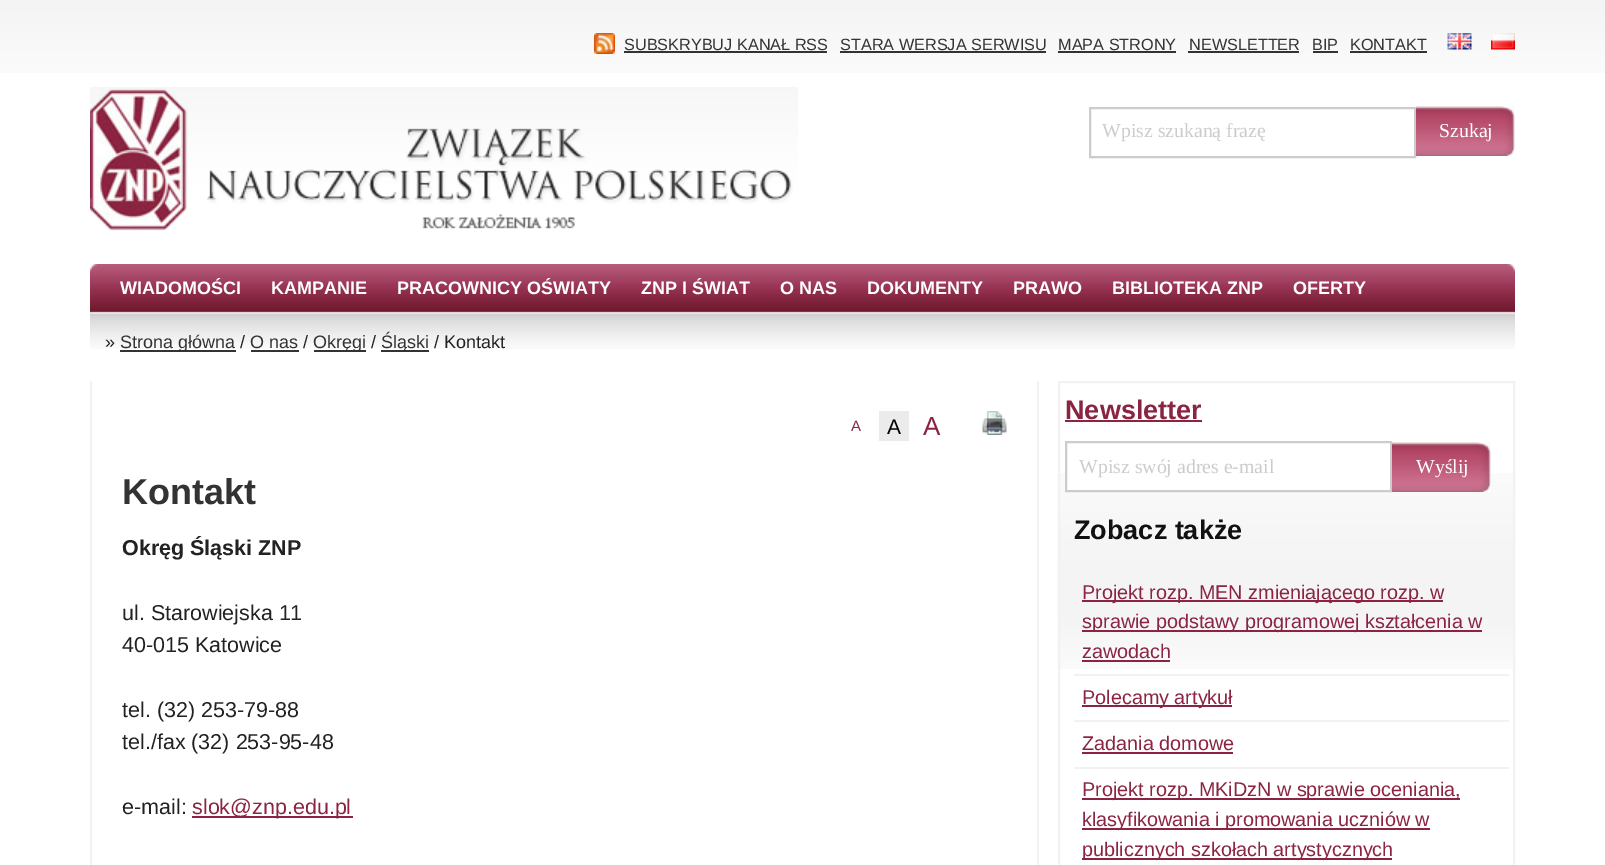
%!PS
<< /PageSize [1605 865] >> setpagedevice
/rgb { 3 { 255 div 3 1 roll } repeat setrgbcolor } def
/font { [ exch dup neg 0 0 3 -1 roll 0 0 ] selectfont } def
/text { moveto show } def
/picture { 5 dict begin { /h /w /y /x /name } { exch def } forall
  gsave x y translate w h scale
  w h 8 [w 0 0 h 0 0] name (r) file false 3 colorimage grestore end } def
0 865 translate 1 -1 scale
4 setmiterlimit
255 255 255 rgb
0 0 1605 865 rectfill
(img_01.rgb) 0 0 1605 73 picture
(img_02.rgb) 594 33 21 21 picture
51 51 51 rgb
624 51 203 2 rectfill
840 51 206 2 rectfill
1058 51 118 2 rectfill
1188 51 111 2 rectfill
1313 51 25 2 rectfill
1350 51 77 2 rectfill
(img_03.rgb) 1447 33 25 17 picture
(img_04.rgb) 1491 33 24 17 picture
(img_05.rgb) 90 87 708 144 picture
204 204 204 rgb
2 setlinewidth
1090 108 325 49 rectstroke
(img_06.rgb) 1416 106 99 50 picture
(img_07.rgb) 90 264 1425 85 picture
51 51 51 rgb
120 350 116 2 rectfill
251 350 48 2 rectfill
314 350 52 2 rectfill
381 350 48 2 rectfill
242 242 242 rgb
1037 381 2 484 rectfill
90 381 2 484 rectfill
235 235 235 rgb
879 411 30 30 rectfill
(img_08.rgb) 982 411 25 24 picture
139 36 66 rgb
192 816 161 2 rectfill
(img_09.rgb) 1057 473 456 196 picture
242 242 242 rgb
1059 382 455 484 rectstroke
139 36 66 rgb
1065 420 137 2 rectfill
255 255 255 rgb
1067 473 323 17 rectfill
204 204 204 rgb
1066 442 325 49 rectstroke
(img_06.rgb) 1392 442 99 50 picture
242 242 242 rgb
1074 674 435 2 rectfill
139 36 66 rgb
1082 600 361 2 rectfill
1082 630 400 2 rectfill
1082 660 88 2 rectfill
242 242 242 rgb
1074 720 435 2 rectfill
139 36 66 rgb
1082 705 150 2 rectfill
242 242 242 rgb
1074 767 435 2 rectfill
139 36 66 rgb
1082 752 151 2 rectfill
1082 798 378 2 rectfill
1082 828 348 2 rectfill
1082 858 310 2 rectfill
/LiberationSans-Regular 16.25 font
51 51 51 rgb
(SUBSKRYBUJ KANAŁ RSS) 624 50 text
(STARA WERSJA SERWISU) 840 50 text
(MAPA STRONY) 1058 50 text
(NEWSLETTER) 1189 50 text
(BIP) 1312 50 text
(KONTAKT) 1350 50 text
/LiberationSerif-Regular 19.8 font
204 204 204 rgb
(Wpisz szukaną frazę) 1102 137 text
255 255 255 rgb
(Szukaj) 1439 137 text
/LiberationSans-Bold 18 font
(WIADOMOŚCI) 120 294 text
(KAMPANIE) 271 294 text
(PRACOWNICY OŚWIATY) 397 294 text
(ZNP I ŚWIAT) 641 294 text
(O NAS) 780 294 text
(DOKUMENTY) 867 294 text
(PRAWO) 1013 294 text
(BIBLIOTEKA ZNP) 1112 294 text
(OFERTY) 1293 294 text
/LiberationSans-Regular 18 font
34 34 34 rgb
(») 105 348 text
51 51 51 rgb
(Strona główna) 120 348 text
34 34 34 rgb
(/) 240 348 text
51 51 51 rgb
(O nas) 250 348 text
34 34 34 rgb
(/) 303 348 text
51 51 51 rgb
(Okręgi) 313 348 text
34 34 34 rgb
(/) 371 348 text
51 51 51 rgb
(Śląski) 381 348 text
34 34 34 rgb
(/ Kontakt) 434 348 text
/LiberationSans-Regular 15 font
139 36 66 rgb
(A) 851 431 text
/LiberationSans-Regular 21 font
0 0 0 rgb
(A) 887 434 text
/LiberationSans-Regular 26 font
139 36 66 rgb
(A) 923 435 text
/LiberationSans-Bold 36 font
51 51 51 rgb
(Kontakt) 122 504 text
/LiberationSans-Bold 21.5 font
34 34 34 rgb
(Okręg Śląski ZNP) 122 555 text
/LiberationSans-Regular 21.5 font
(ul. Starowiejska 11) 122 620 text
(40-015 Katowice) 122 652 text
(tel. \(32\) 253-79-88) 122 717 text
(tel./fax \(32\) 253-95-48) 122 749 text
(e-mail:) 122 814 text
139 36 66 rgb
(slok@znp.edu.pl) 192 814 text
/LiberationSans-Bold 27 font
(Newsletter) 1065 419 text
/LiberationSerif-Regular 19.8 font
204 204 204 rgb
(Wpisz swój adres e-mail) 1079 473 text
255 255 255 rgb
(Wyślij) 1416 473 text
/LiberationSans-Bold 27 font
17 17 17 rgb
(Zobacz także) 1074 539 text
/LiberationSans-Regular 19.8 font
139 36 66 rgb
(Projekt rozp. MEN zmieniającego rozp. w) 1082 599 text
(sprawie podstawy programowej kształcenia w) 1082 628 text
(zawodach) 1082 658 text
(Polecamy artykuł) 1082 704 text
(Zadania domowe) 1082 750 text
(Projekt rozp. MKiDzN w sprawie oceniania,) 1082 796 text
(klasyfikowania i promowania uczniów w) 1082 826 text
(publicznych szkołach artystycznych) 1082 856 text
showpage
